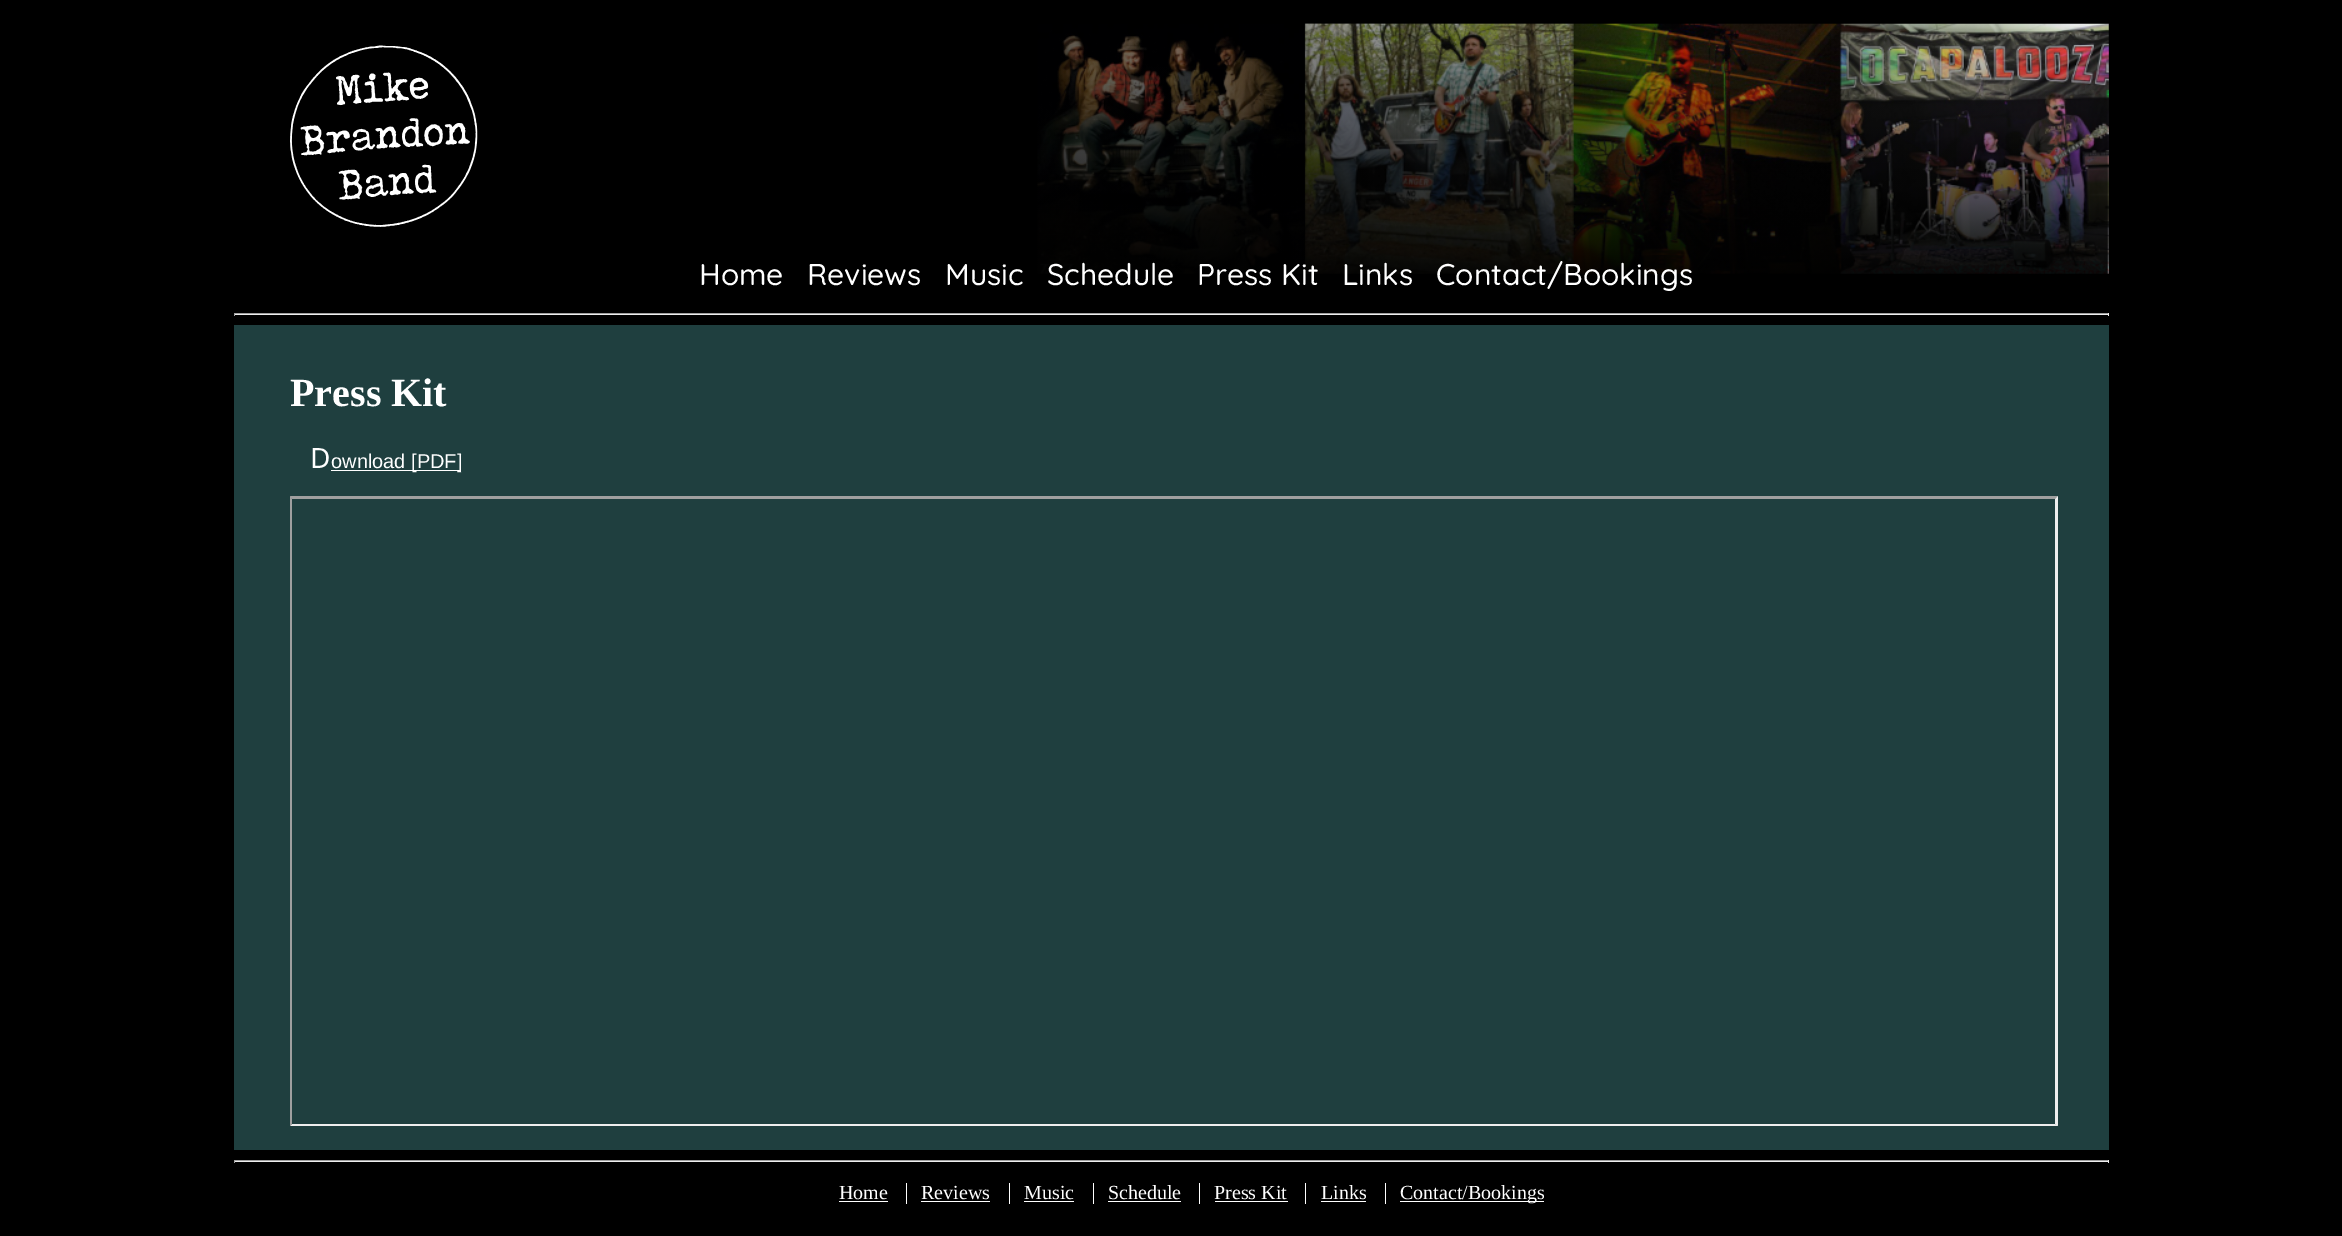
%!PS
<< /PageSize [2342 1236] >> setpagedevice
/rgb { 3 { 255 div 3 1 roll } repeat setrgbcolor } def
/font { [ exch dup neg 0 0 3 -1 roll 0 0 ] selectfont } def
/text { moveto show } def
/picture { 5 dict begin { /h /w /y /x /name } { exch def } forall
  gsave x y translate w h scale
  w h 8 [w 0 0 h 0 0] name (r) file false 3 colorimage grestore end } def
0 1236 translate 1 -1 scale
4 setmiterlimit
0 0 0 rgb
0 0 2342 1236 rectfill
(img_01.rgb) 1037 23 1072 251 picture
(img_02.rgb) 290 45 188 182 picture
159 159 159 rgb
234 313 1875 1 rectfill
238 238 238 rgb
2108 313 1 3 rectfill
234 314 1875 1 rectfill
159 159 159 rgb
234 313 1 3 rectfill
31 63 63 rgb
234 325 1875 825 rectfill
255 255 255 rgb
331 470 130 1 rectfill
159 159 159 rgb
290 496 moveto 1768 0 rlineto -3 3 rlineto -1763 0 rlineto closepath fill
238 238 238 rgb
2058 496 moveto 0 630 rlineto -3 -2 rlineto 0 -625 rlineto closepath fill
2058 1126 moveto -1768 0 rlineto 2 -2 rlineto 1763 0 rlineto closepath fill
159 159 159 rgb
290 1126 moveto 0 -630 rlineto 2 3 rlineto 0 625 rlineto closepath fill
234 1160 1875 1 rectfill
238 238 238 rgb
2108 1160 1 3 rectfill
234 1161 1875 1 rectfill
159 159 159 rgb
234 1160 1 3 rectfill
255 255 255 rgb
906 1183 1 21 rectfill
839 1201 49 1 rectfill
1009 1183 1 21 rectfill
921 1201 69 1 rectfill
1093 1183 1 21 rectfill
1024 1201 50 1 rectfill
1199 1183 1 21 rectfill
1108 1201 73 1 rectfill
1305 1183 1 21 rectfill
1215 1201 73 1 rectfill
1385 1183 1 21 rectfill
1321 1201 45 1 rectfill
1400 1201 144 1 rectfill
/Quicksand-Light 30 font
(Home) 699 285 text
(Reviews) 807 285 text
(Music) 945 285 text
(Schedule) 1047 285 text
(Press Kit) 1197 285 text
(Links) 1342 285 text
(Contact/Bookings) 1436 285 text
/LiberationSerif-Bold 40 font
(Press Kit) 290 406 text
/NotoSans-Regular 28 font
(D) 310 468 text
/LiberationSans-Regular 20 font
(ownload [PDF]) 331 468 text
/LiberationSerif-Regular 20 font
(Home) 839 1199 text
(Reviews) 921 1199 text
(Music) 1024 1199 text
(Schedule) 1108 1199 text
(Press Kit) 1214 1199 text
(Links) 1321 1199 text
(Contact/Bookings) 1400 1199 text
showpage
